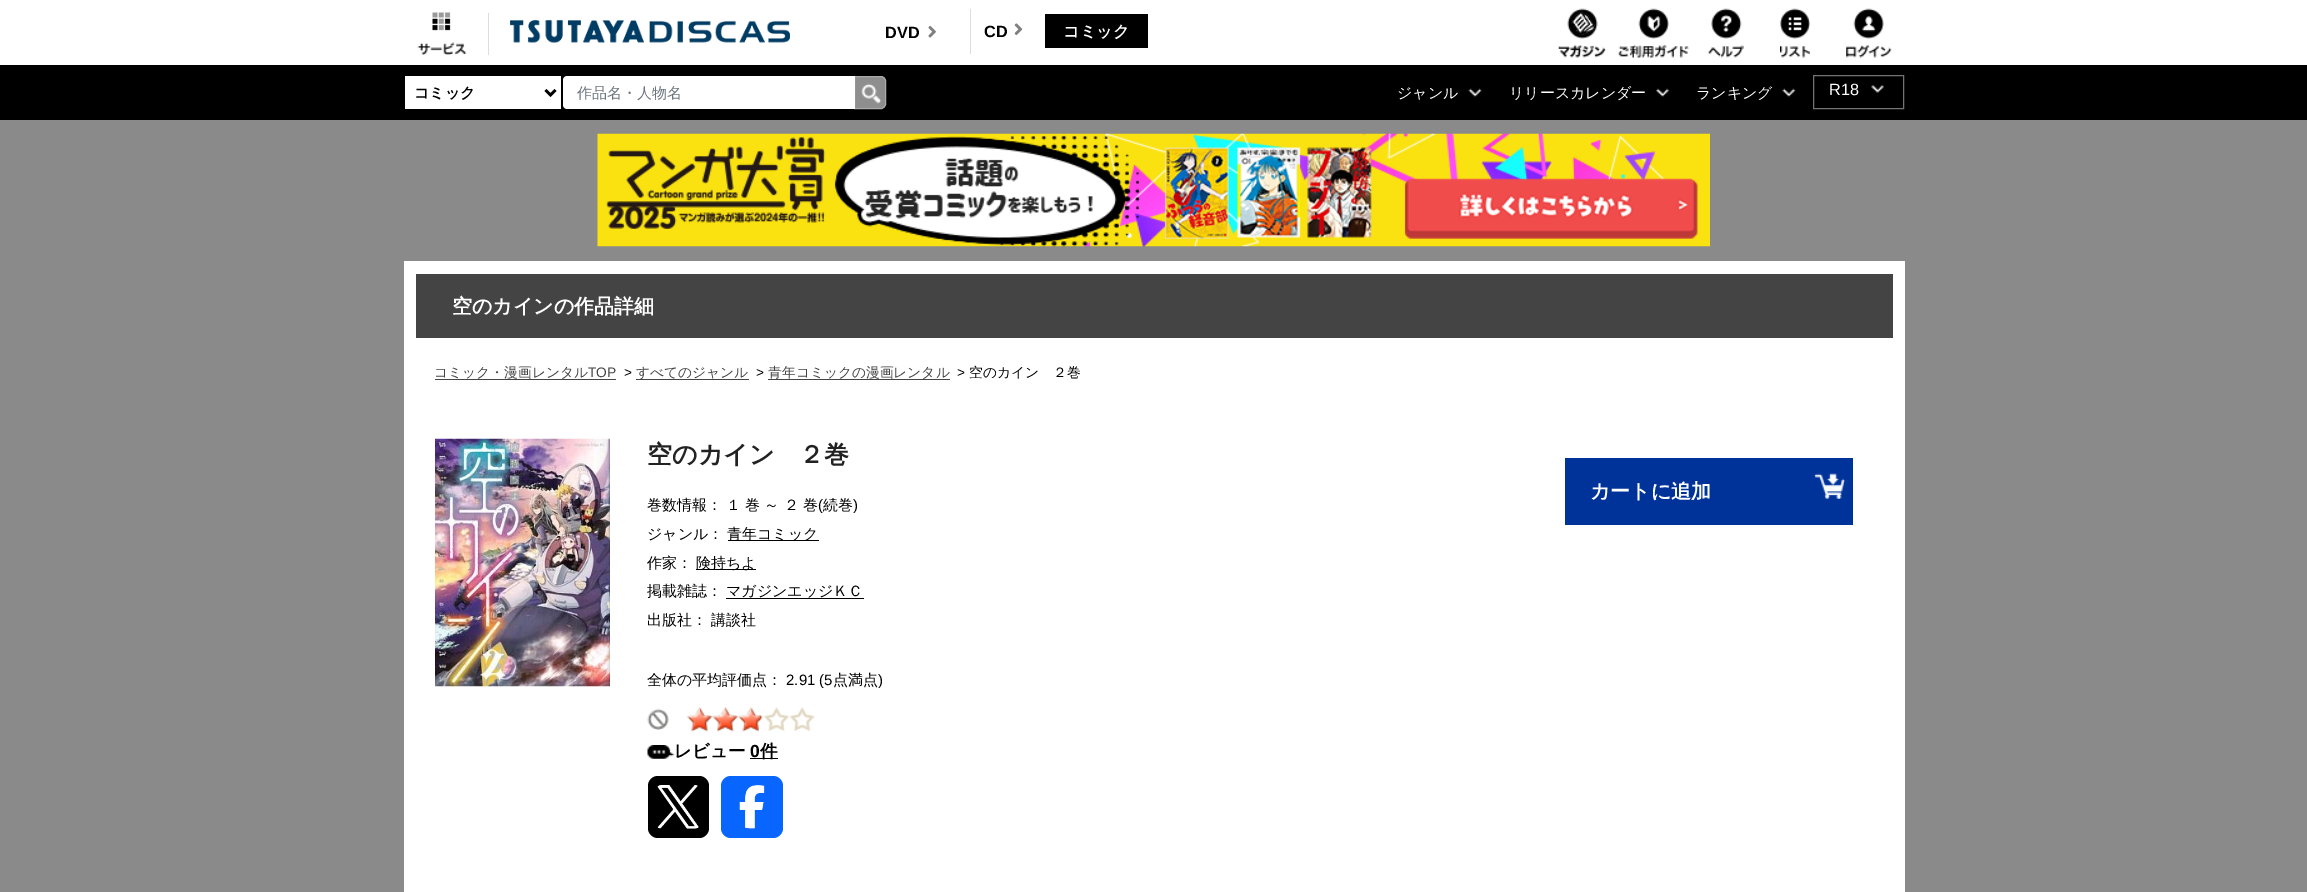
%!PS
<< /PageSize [2307 892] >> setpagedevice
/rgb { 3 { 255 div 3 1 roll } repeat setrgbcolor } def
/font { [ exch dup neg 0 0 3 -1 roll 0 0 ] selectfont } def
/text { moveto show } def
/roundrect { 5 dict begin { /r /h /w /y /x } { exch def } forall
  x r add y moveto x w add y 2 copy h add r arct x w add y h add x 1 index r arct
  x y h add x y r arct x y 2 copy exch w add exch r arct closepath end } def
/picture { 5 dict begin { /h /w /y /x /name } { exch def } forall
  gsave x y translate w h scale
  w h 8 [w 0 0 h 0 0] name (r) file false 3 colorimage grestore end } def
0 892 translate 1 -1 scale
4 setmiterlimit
138 138 138 rgb
0 0 2307 892 rectfill
255 255 255 rgb
0 0 2307 65 rectfill
221 221 221 rgb
488 13 1 42 rectfill
(img_01.rgb) 417 12 50 43 picture
(img_02.rgb) 510 20 280 23 picture
(img_03.rgb) 928 25 8 13 picture
970 9 1 45 rectfill
(img_04.rgb) 1014 23 9 12 picture
0 0 0 rgb
1045 14 103 34 rectfill
(img_05.rgb) 1558 8 48 50 picture
(img_06.rgb) 1618 8 71 50 picture
(img_07.rgb) 1708 8 36 50 picture
(img_08.rgb) 1780 8 30 50 picture
(img_09.rgb) 1846 8 46 50 picture
0 65 2307 55 rectfill
255 255 255 rgb
405 76 156 33 rectfill
0 0 0 rgb
2.5 setlinewidth
545.5 90 moveto 5 5 rlineto 5 -5 rlineto stroke
142 142 142 rgb
854.5 76.5 moveto 26.5 0 rlineto 2.5 0 4.5 2 4.5 4.5 rcurveto 0 23 rlineto 0 2.5 -2 4.5 -4.5 4.5 rcurveto -26.5 0 rlineto closepath gsave fill grestore
170 170 170 rgb
1 setlinewidth
stroke
255 255 255 rgb
567 76 moveto 288 0 rlineto 0 33 rlineto -288 0 rlineto -2 0 -4 -2 -4 -4 rcurveto 0 -25 rlineto 0 -2 2 -4 4 -4 rcurveto closepath fill
(img_10.rgb) 861 83 21 21 picture
(img_11.rgb) 1468 88 14 9 picture
(img_12.rgb) 1656 88 13 9 picture
(img_13.rgb) 1782 88 13 9 picture
115 115 115 rgb
1813.5 75.5 90 33 rectstroke
(img_14.rgb) 1871 85 13 8 picture
(img_15.rgb) 597 133 1113 114 picture
255 255 255 rgb
404 261 1501 631 rectfill
68 68 68 rgb
416 274 1477 64 rectfill
435 379 181 1 rectfill
636 379 113 1 rectfill
768 379 182 1 rectfill
(img_16.rgb) 435 438 175 249 picture
0 0 0 rgb
728 540 91 1 rectfill
696 569 60 1 rectfill
726 598 138 1 rectfill
(img_17.rgb) 647 708 22 22 picture
(img_18.rgb) 686 707 129 25 picture
(img_19.rgb) 647 745 28 14 picture
750 758 28 1 rectfill
648 776 61 62 10 roundrect fill
(img_20.rgb) 657 785 42 44 picture
8 102 255 rgb
721 776 62 62 10 roundrect fill
(img_21.rgb) 739 785 26 44 picture
0 51 153 rgb
1565 458 288 67 rectfill
(img_22.rgb) 1814 473 31 26 picture
/LiberationSans-Bold 16.25 font
0 0 0 rgb
(DVD) 885 38 text
(CD) 984 37 text
/WenQuanYiZenHei-Bold 16.25 font
255 255 255 rgb
(コミック) 1063 37 text
/WenQuanYiZenHei-Bold 15 font
0 0 0 rgb
(コミック) 414 98 text
/WenQuanYiZenHei-Medium 15 font
108 117 125 rgb
(作品名・人物名) 577 98 text
255 255 255 rgb
(ジャンル) 1397 98 text
(リリースカレンダー) 1509 98 text
(ランキング) 1696 98 text
/LiberationSans-Regular 16.25 font
(R18) 1829 95 text
/WenQuanYiZenHei-Bold 20 font
(空のカインの作品詳細) 452 313 text
/WenQuanYiZenHei-Medium 13.75 font
68 68 68 rgb
(コミック・漫画レンタル) 434 377 text
/LiberationSans-Regular 13.75 font
(TOP) 588 377 text
0 0 0 rgb
(>) 624 377 text
/WenQuanYiZenHei-Medium 13.75 font
68 68 68 rgb
(すべてのジャンル) 636 377 text
/LiberationSans-Regular 13.75 font
0 0 0 rgb
(>) 756 377 text
/WenQuanYiZenHei-Medium 13.75 font
68 68 68 rgb
(青年コミックの漫画レンタル) 768 377 text
/LiberationSans-Regular 13.75 font
0 0 0 rgb
(>) 957 377 text
/WenQuanYiZenHei-Medium 13.75 font
(空のカイン　２巻) 969 377 text
/WenQuanYiZenHei-Bold 25 font
34 34 34 rgb
(空のカイン　２巻) 647 463 text
/WenQuanYiZenHei-Medium 15 font
0 0 0 rgb
(巻数情報：) 647 510 text
(１) 726 510 text
(巻 ～) 745 510 text
(２) 784 510 text
(巻) 803 510 text
/LiberationSans-Regular 15 font
(\() 818 510 text
/WenQuanYiZenHei-Medium 15 font
(続巻) 823 510 text
/LiberationSans-Regular 15 font
(\)) 853 510 text
/WenQuanYiZenHei-Medium 15 font
(ジャンル：) 647 539 text
(青年コミック) 727 539 text
(作家：) 647 568 text
(険持ちよ) 696 568 text
(掲載雑誌：) 647 596 text
(マガジンエッジＫＣ) 726 596 text
(出版社：) 647 625 text
(講談社) 711 625 text
(全体の平均評価点：) 647 685 text
/LiberationSans-Regular 15 font
(2.91 \(5) 786 685 text
/WenQuanYiZenHei-Medium 15 font
(点満点) 833 685 text
/LiberationSans-Regular 15 font
(\)) 878 685 text
/WenQuanYiZenHei-Bold 17.5 font
(レビュー) 674 757 text
/LiberationSans-Bold 17.5 font
(0) 750 757 text
/WenQuanYiZenHei-Bold 17.5 font
(件) 760 757 text
/WenQuanYiZenHei-Bold 20 font
255 255 255 rgb
(カートに追加) 1590 498 text
showpage
